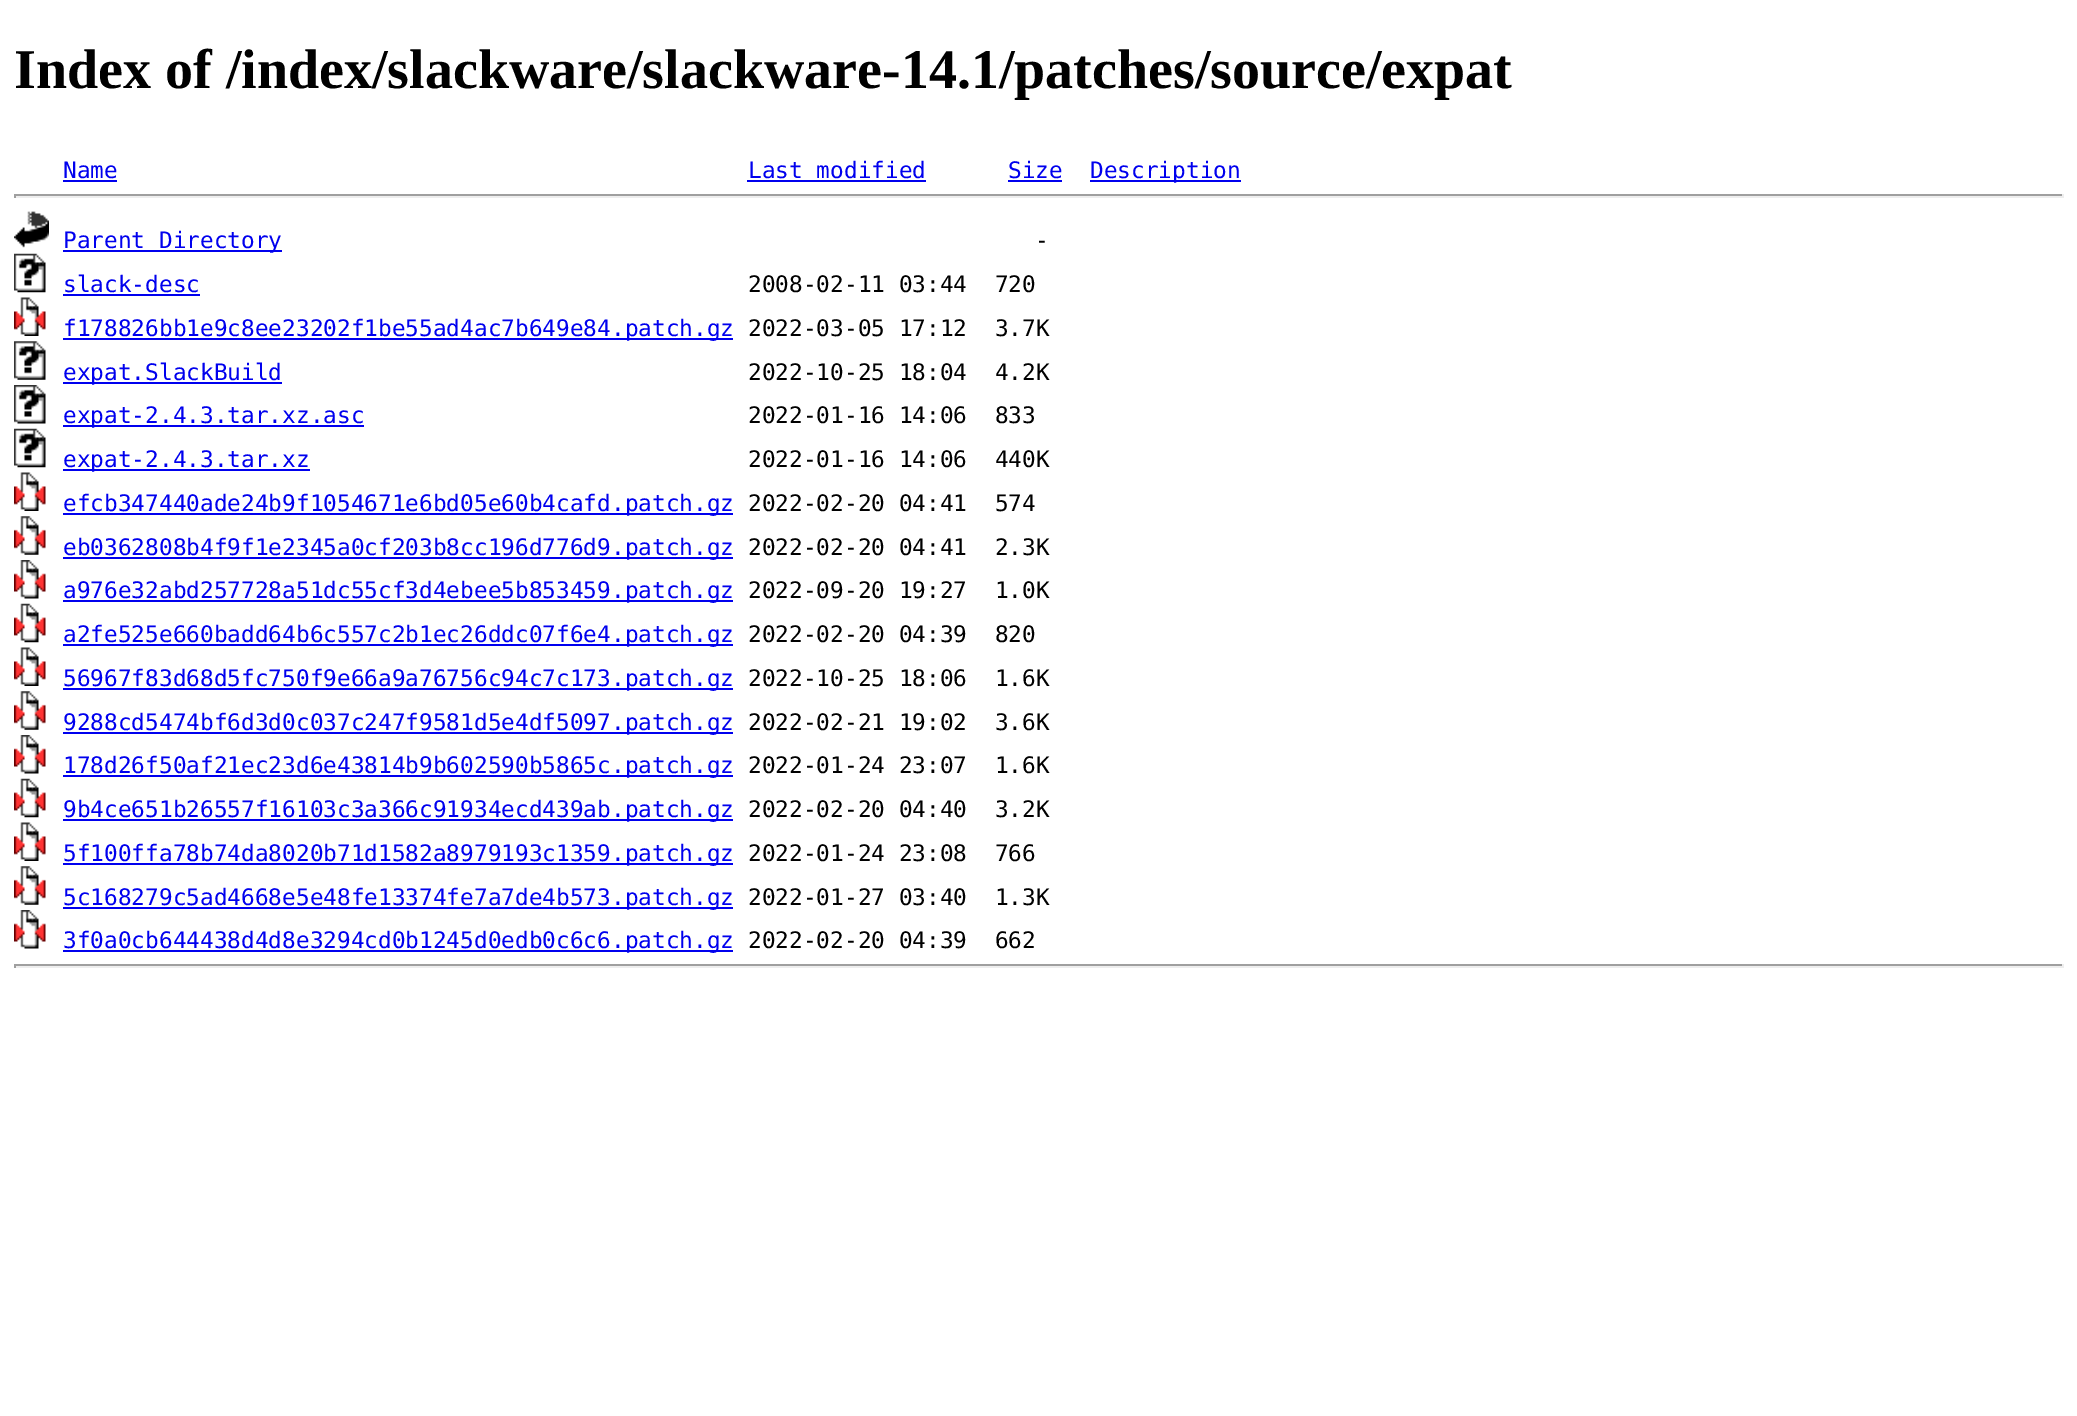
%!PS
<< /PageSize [2077 1416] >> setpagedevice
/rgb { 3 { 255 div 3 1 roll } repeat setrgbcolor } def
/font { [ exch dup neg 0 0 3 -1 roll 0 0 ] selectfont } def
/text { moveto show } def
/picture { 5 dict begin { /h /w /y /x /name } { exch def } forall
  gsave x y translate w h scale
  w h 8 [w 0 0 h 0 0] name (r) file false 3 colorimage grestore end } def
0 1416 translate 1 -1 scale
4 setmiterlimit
255 255 255 rgb
0 0 2077 1416 rectfill
0 0 238 rgb
63 180 54 2 rectfill
747 180 179 2 rectfill
1008 180 54 2 rectfill
1090 180 151 2 rectfill
159 159 159 rgb
14 194 2049 2 rectfill
238 238 238 rgb
2062 194 2 4 rectfill
14 196 2049 2 rectfill
159 159 159 rgb
14 194 2 4 rectfill
(img_01.rgb) 14 211 35 37 picture
0 0 238 rgb
63 250 219 2 rectfill
(img_02.rgb) 14 253 32 40 picture
63 294 137 2 rectfill
(img_03.rgb) 14 297 32 39 picture
63 338 670 2 rectfill
(img_04.rgb) 14 341 32 39 picture
63 382 219 2 rectfill
(img_05.rgb) 14 385 32 39 picture
63 425 301 2 rectfill
(img_02.rgb) 14 428 32 40 picture
63 469 247 2 rectfill
(img_03.rgb) 14 472 32 39 picture
63 513 670 2 rectfill
(img_06.rgb) 14 516 32 39 picture
63 557 670 2 rectfill
(img_07.rgb) 14 560 32 39 picture
63 600 670 2 rectfill
(img_08.rgb) 14 603 32 40 picture
63 644 670 2 rectfill
(img_03.rgb) 14 647 32 39 picture
63 688 670 2 rectfill
(img_06.rgb) 14 691 32 39 picture
63 732 670 2 rectfill
(img_07.rgb) 14 735 32 39 picture
63 775 670 2 rectfill
(img_08.rgb) 14 778 32 40 picture
63 819 670 2 rectfill
(img_03.rgb) 14 822 32 39 picture
63 863 670 2 rectfill
(img_06.rgb) 14 866 32 39 picture
63 907 670 2 rectfill
(img_07.rgb) 14 910 32 39 picture
63 950 670 2 rectfill
159 159 159 rgb
14 964 2049 2 rectfill
238 238 238 rgb
2062 964 2 4 rectfill
14 966 2049 2 rectfill
159 159 159 rgb
14 964 2 4 rectfill
/LiberationSerif-Bold 56 font
0 0 0 rgb
(Index of /index/slackware/slackware-14.1/patches/source/expat) 14 88 text
/DejaVuSansMono-Regular 22.75 font
0 0 238 rgb
(Name) 63 178 text
(Last modified) 748 178 text
(Size) 1008 178 text
(Description) 1090 178 text
(Parent Directory) 63 248 text
0 0 0 rgb
(-) 1035 248 text
0 0 238 rgb
(slack-desc) 63 292 text
0 0 0 rgb
(2008-02-11 03:44  720) 748 292 text
0 0 238 rgb
(f178826bb1e9c8ee23202f1be55ad4ac7b649e84.patch.gz) 63 336 text
0 0 0 rgb
(2022-03-05 17:12  3.7K) 748 336 text
0 0 238 rgb
(expat.SlackBuild) 63 380 text
0 0 0 rgb
(2022-10-25 18:04  4.2K) 748 380 text
0 0 238 rgb
(expat-2.4.3.tar.xz.asc) 63 423 text
0 0 0 rgb
(2022-01-16 14:06  833) 748 423 text
0 0 238 rgb
(expat-2.4.3.tar.xz) 63 467 text
0 0 0 rgb
(2022-01-16 14:06  440K) 748 467 text
0 0 238 rgb
(efcb347440ade24b9f1054671e6bd05e60b4cafd.patch.gz) 63 511 text
0 0 0 rgb
(2022-02-20 04:41  574) 748 511 text
0 0 238 rgb
(eb0362808b4f9f1e2345a0cf203b8cc196d776d9.patch.gz) 63 555 text
0 0 0 rgb
(2022-02-20 04:41  2.3K) 748 555 text
0 0 238 rgb
(a976e32abd257728a51dc55cf3d4ebee5b853459.patch.gz) 63 598 text
0 0 0 rgb
(2022-09-20 19:27  1.0K) 748 598 text
0 0 238 rgb
(a2fe525e660badd64b6c557c2b1ec26ddc07f6e4.patch.gz) 63 642 text
0 0 0 rgb
(2022-02-20 04:39  820) 748 642 text
0 0 238 rgb
(56967f83d68d5fc750f9e66a9a76756c94c7c173.patch.gz) 63 686 text
0 0 0 rgb
(2022-10-25 18:06  1.6K) 748 686 text
0 0 238 rgb
(9288cd5474bf6d3d0c037c247f9581d5e4df5097.patch.gz) 63 730 text
0 0 0 rgb
(2022-02-21 19:02  3.6K) 748 730 text
0 0 238 rgb
(178d26f50af21ec23d6e43814b9b602590b5865c.patch.gz) 63 773 text
0 0 0 rgb
(2022-01-24 23:07  1.6K) 748 773 text
0 0 238 rgb
(9b4ce651b26557f16103c3a366c91934ecd439ab.patch.gz) 63 817 text
0 0 0 rgb
(2022-02-20 04:40  3.2K) 748 817 text
0 0 238 rgb
(5f100ffa78b74da8020b71d1582a8979193c1359.patch.gz) 63 861 text
0 0 0 rgb
(2022-01-24 23:08  766) 748 861 text
0 0 238 rgb
(5c168279c5ad4668e5e48fe13374fe7a7de4b573.patch.gz) 63 905 text
0 0 0 rgb
(2022-01-27 03:40  1.3K) 748 905 text
0 0 238 rgb
(3f0a0cb644438d4d8e3294cd0b1245d0edb0c6c6.patch.gz) 63 948 text
0 0 0 rgb
(2022-02-20 04:39  662) 748 948 text
showpage
